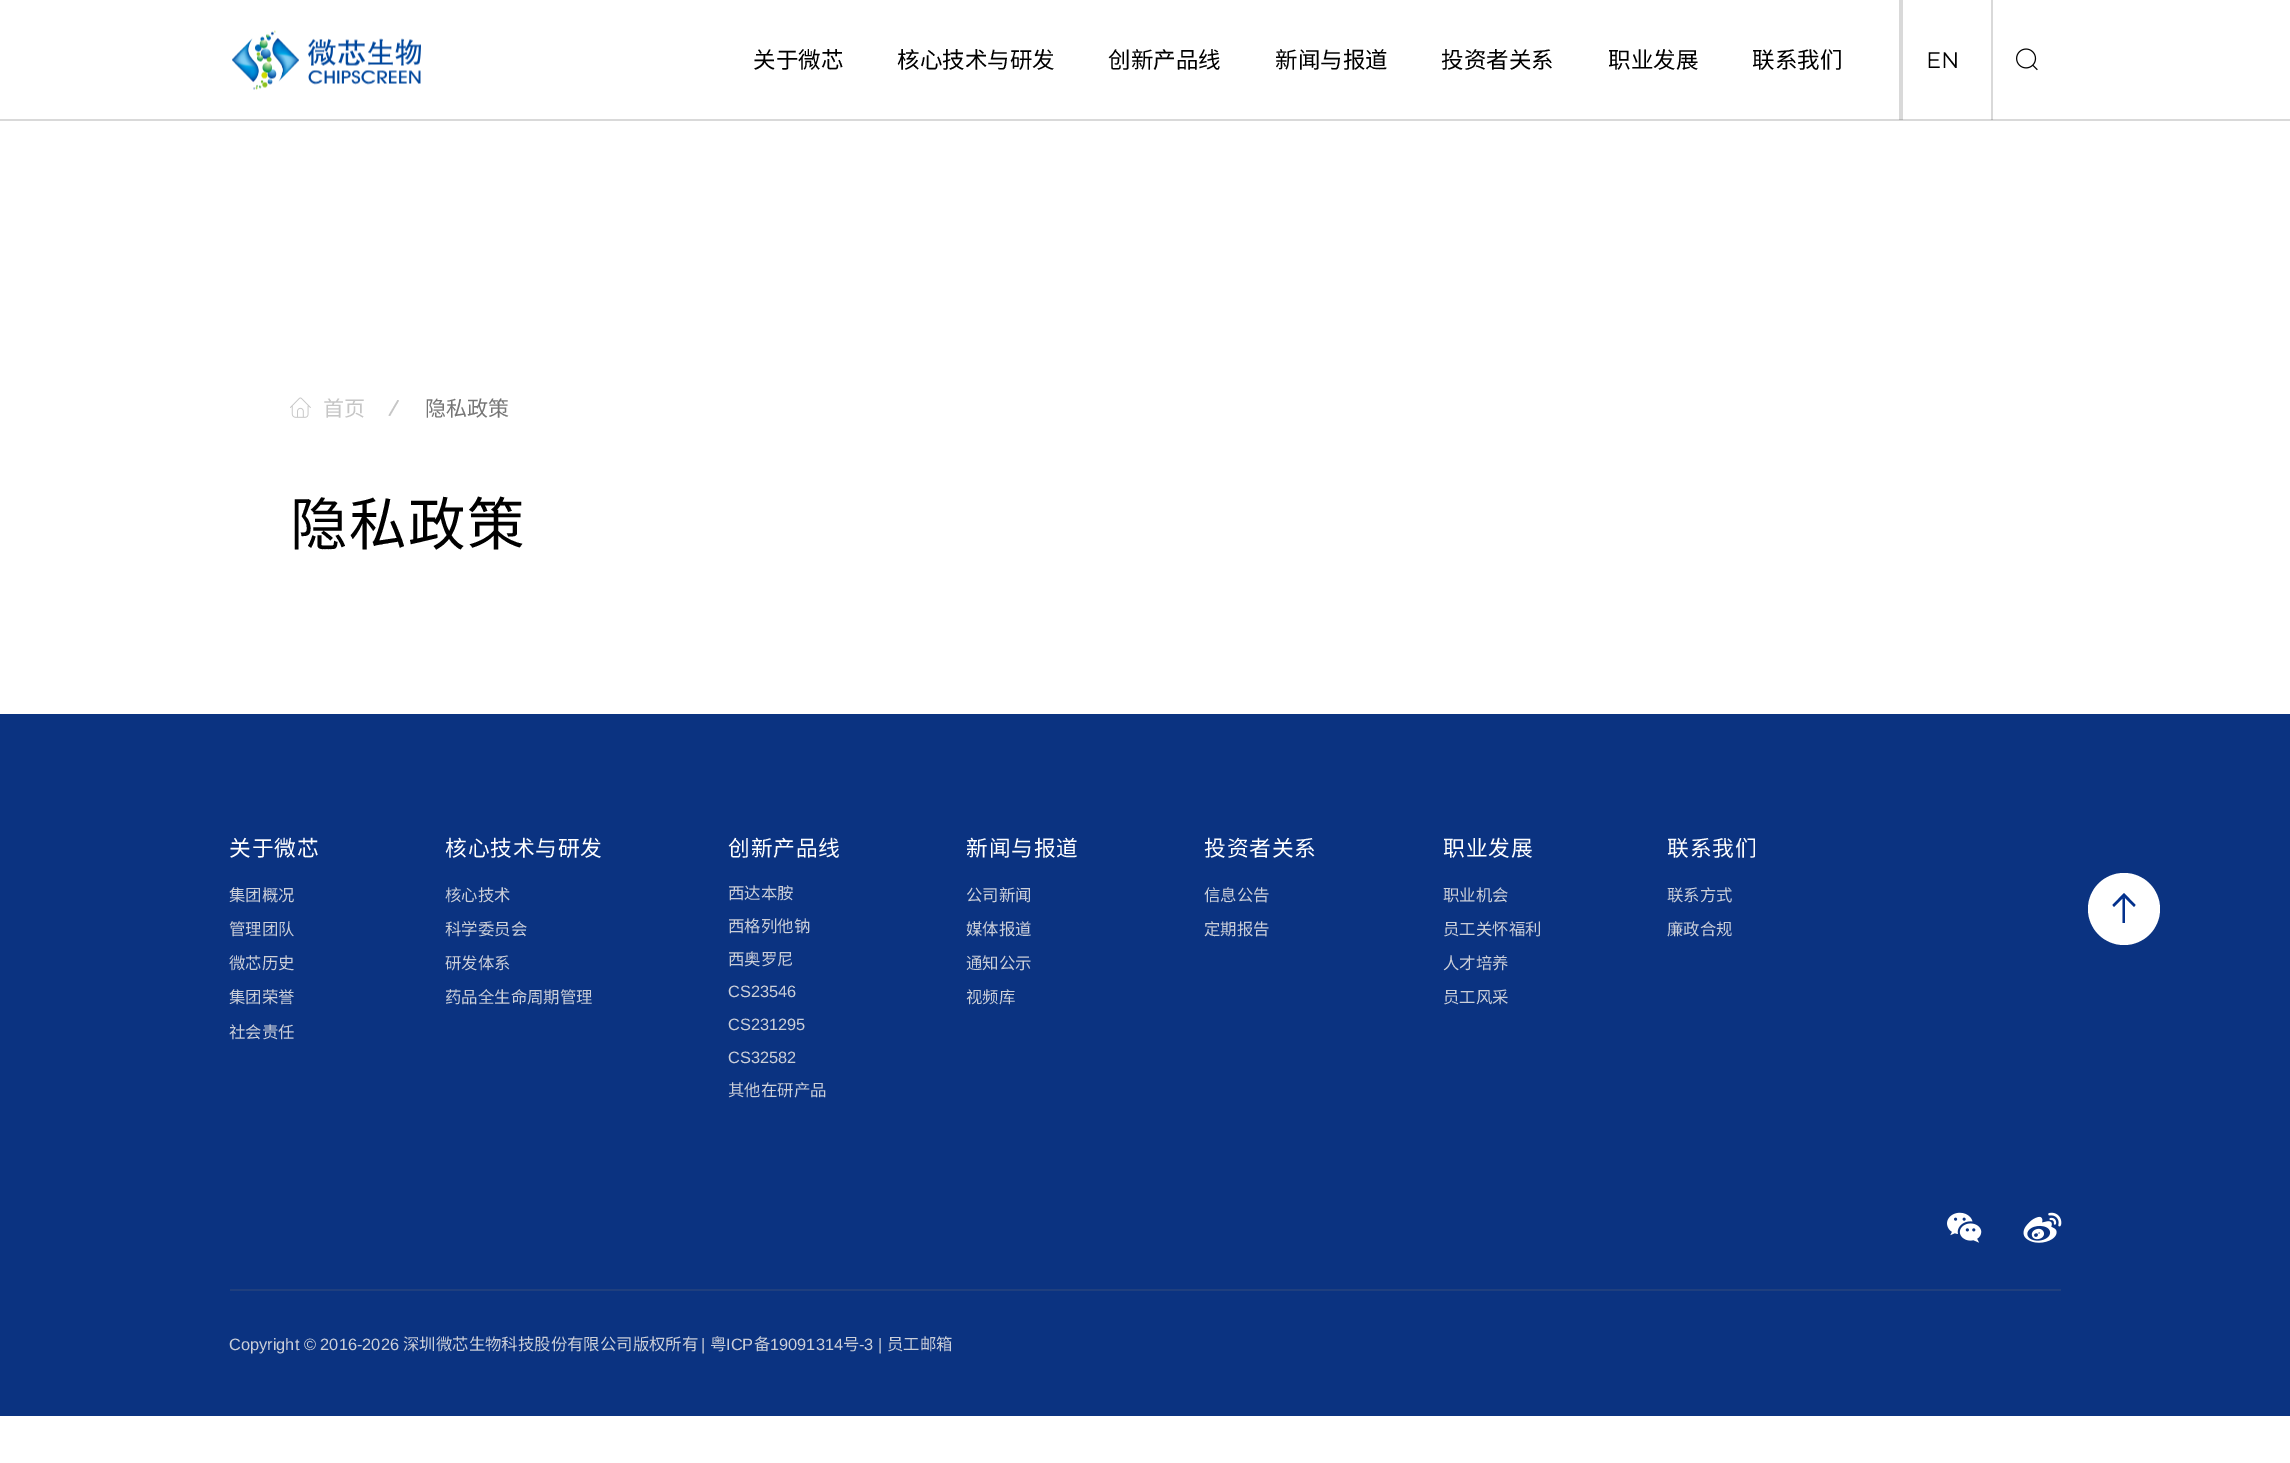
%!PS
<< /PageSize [2290 1463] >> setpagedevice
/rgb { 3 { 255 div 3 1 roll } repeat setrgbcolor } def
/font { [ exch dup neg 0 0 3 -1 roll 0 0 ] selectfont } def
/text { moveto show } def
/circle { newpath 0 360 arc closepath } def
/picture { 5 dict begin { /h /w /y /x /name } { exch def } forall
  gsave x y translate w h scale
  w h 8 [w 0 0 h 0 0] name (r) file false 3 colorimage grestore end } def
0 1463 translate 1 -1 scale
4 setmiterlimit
255 255 255 rgb
0 0 2290 1463 rectfill
217 217 217 rgb
1991 0 2 120 rectfill
1899 0 4 120 rectfill
(img_01.rgb) 232 30 189 60 picture
(img_02.rgb) 2016 48 22 23 picture
0 119 2290 2 rectfill
184 184 184 rgb
1991 119 2 1 rectfill
1899 119 4 1 rectfill
(img_03.rgb) 290 397 21 21 picture
198 198 198 rgb
397.5 400 moveto 1.5 0.5 rlineto -9 15.5 rlineto -1.5 -0.5 rlineto closepath fill
11 51 129 rgb
0 714 2290 702 rectfill
255 255 255 rgb
2124 909 36 circle fill
3 49 141 rgb
2122.5 897.5 moveto 2.5 0 rlineto 0 25.5 rlineto -2.5 0 rlineto closepath 2134 907 moveto -10 -10 rlineto -10 10 rlineto -1.5 -2 rlineto 11.5 -12 rlineto 11.5 12 rlineto closepath fill
(img_04.rgb) 1947 1212 35 31 picture
(img_05.rgb) 2023 1212 39 31 picture
31 63 126 rgb
230 1289 1831 2 rectfill
/NotoSansCJKSC-Regular 22.5 font
0 0 0 rgb
(关于微芯) 753 68 text
(核心技术与研发) 897 68 text
(创新产品线) 1108 68 text
(新闻与报道) 1275 68 text
(投资者关系) 1441 68 text
(职业发展) 1608 68 text
(联系我们) 1752 68 text
/Montserrat-Bold 21.75 font
1926 68 moveto 0.75 0 (EN) ashow
/NotoSansCJKSC-Regular 21 font
198 198 198 rgb
(首页) 323 416 text
118 118 118 rgb
(隐私政策) 425 416 text
/NotoSansCJKSC-Regular 57.5 font
0 0 0 rgb
290 545 moveto 1.5 0 (隐私政策) ashow
/NotoSansCJKSC-Regular 21.75 font
255 255 255 rgb
229 856 moveto 0.75 0 (关于微芯) ashow
/NotoSansCJKSC-Regular 16.4 font
203 207 217 rgb
(集团概况) 229 901 text
(管理团队) 229 935 text
(微芯历史) 229 969 text
(集团荣誉) 229 1003 text
(社会责任) 229 1038 text
/NotoSansCJKSC-Regular 21.75 font
255 255 255 rgb
445 856 moveto 0.75 0 (核心技术与研发) ashow
/NotoSansCJKSC-Regular 16.4 font
203 207 217 rgb
(核心技术) 445 901 text
(科学委员会) 445 935 text
(研发体系) 445 969 text
(药品全生命周期管理) 445 1003 text
/NotoSansCJKSC-Regular 21.75 font
255 255 255 rgb
728 856 moveto 0.75 0 (创新产品线) ashow
/NotoSansCJKSC-Regular 16.4 font
203 207 217 rgb
(西达本胺) 728 899 text
(西格列他钠) 728 932 text
(西奥罗尼) 728 965 text
/LiberationSans-Regular 16.4 font
(CS23546) 728 997 text
(CS231295) 728 1030 text
(CS32582) 728 1063 text
/NotoSansCJKSC-Regular 16.4 font
(其他在研产品) 728 1096 text
/NotoSansCJKSC-Regular 21.75 font
255 255 255 rgb
966 856 moveto 0.75 0 (新闻与报道) ashow
/NotoSansCJKSC-Regular 16.4 font
203 207 217 rgb
(公司新闻) 966 901 text
(媒体报道) 966 935 text
(通知公示) 966 969 text
(视频库) 966 1003 text
/NotoSansCJKSC-Regular 21.75 font
255 255 255 rgb
1204 856 moveto 0.75 0 (投资者关系) ashow
/NotoSansCJKSC-Regular 16.4 font
203 207 217 rgb
(信息公告) 1204 901 text
(定期报告) 1204 935 text
/NotoSansCJKSC-Regular 21.75 font
255 255 255 rgb
1443 856 moveto 0.75 0 (职业发展) ashow
/NotoSansCJKSC-Regular 16.4 font
203 207 217 rgb
(职业机会) 1443 901 text
(员工关怀福利) 1443 935 text
(人才培养) 1443 969 text
(员工风采) 1443 1003 text
/NotoSansCJKSC-Regular 21.75 font
255 255 255 rgb
1667 856 moveto 0.75 0 (联系我们) ashow
/NotoSansCJKSC-Regular 16.4 font
203 207 217 rgb
(联系方式) 1667 901 text
(廉政合规) 1667 935 text
/LiberationSans-Regular 16.4 font
(Copyright © 2016-2026) 229 1350 text
/NotoSansCJKSC-Regular 16.4 font
(深圳微芯生物科技股份有限公司版权所有) 403 1350 text
/LiberationSans-Regular 16.4 font
(|) 701 1350 text
/NotoSansCJKSC-Regular 16.4 font
(粤) 710 1350 text
/LiberationSans-Regular 16.4 font
(ICP) 726 1350 text
/NotoSansCJKSC-Regular 16.4 font
(备) 754 1350 text
/LiberationSans-Regular 16.4 font
(19091314) 770 1350 text
/NotoSansCJKSC-Regular 16.4 font
(号) 843 1350 text
/LiberationSans-Regular 16.4 font
(-3 |) 859 1350 text
/NotoSansCJKSC-Regular 16.4 font
(员工邮箱) 887 1350 text
showpage
